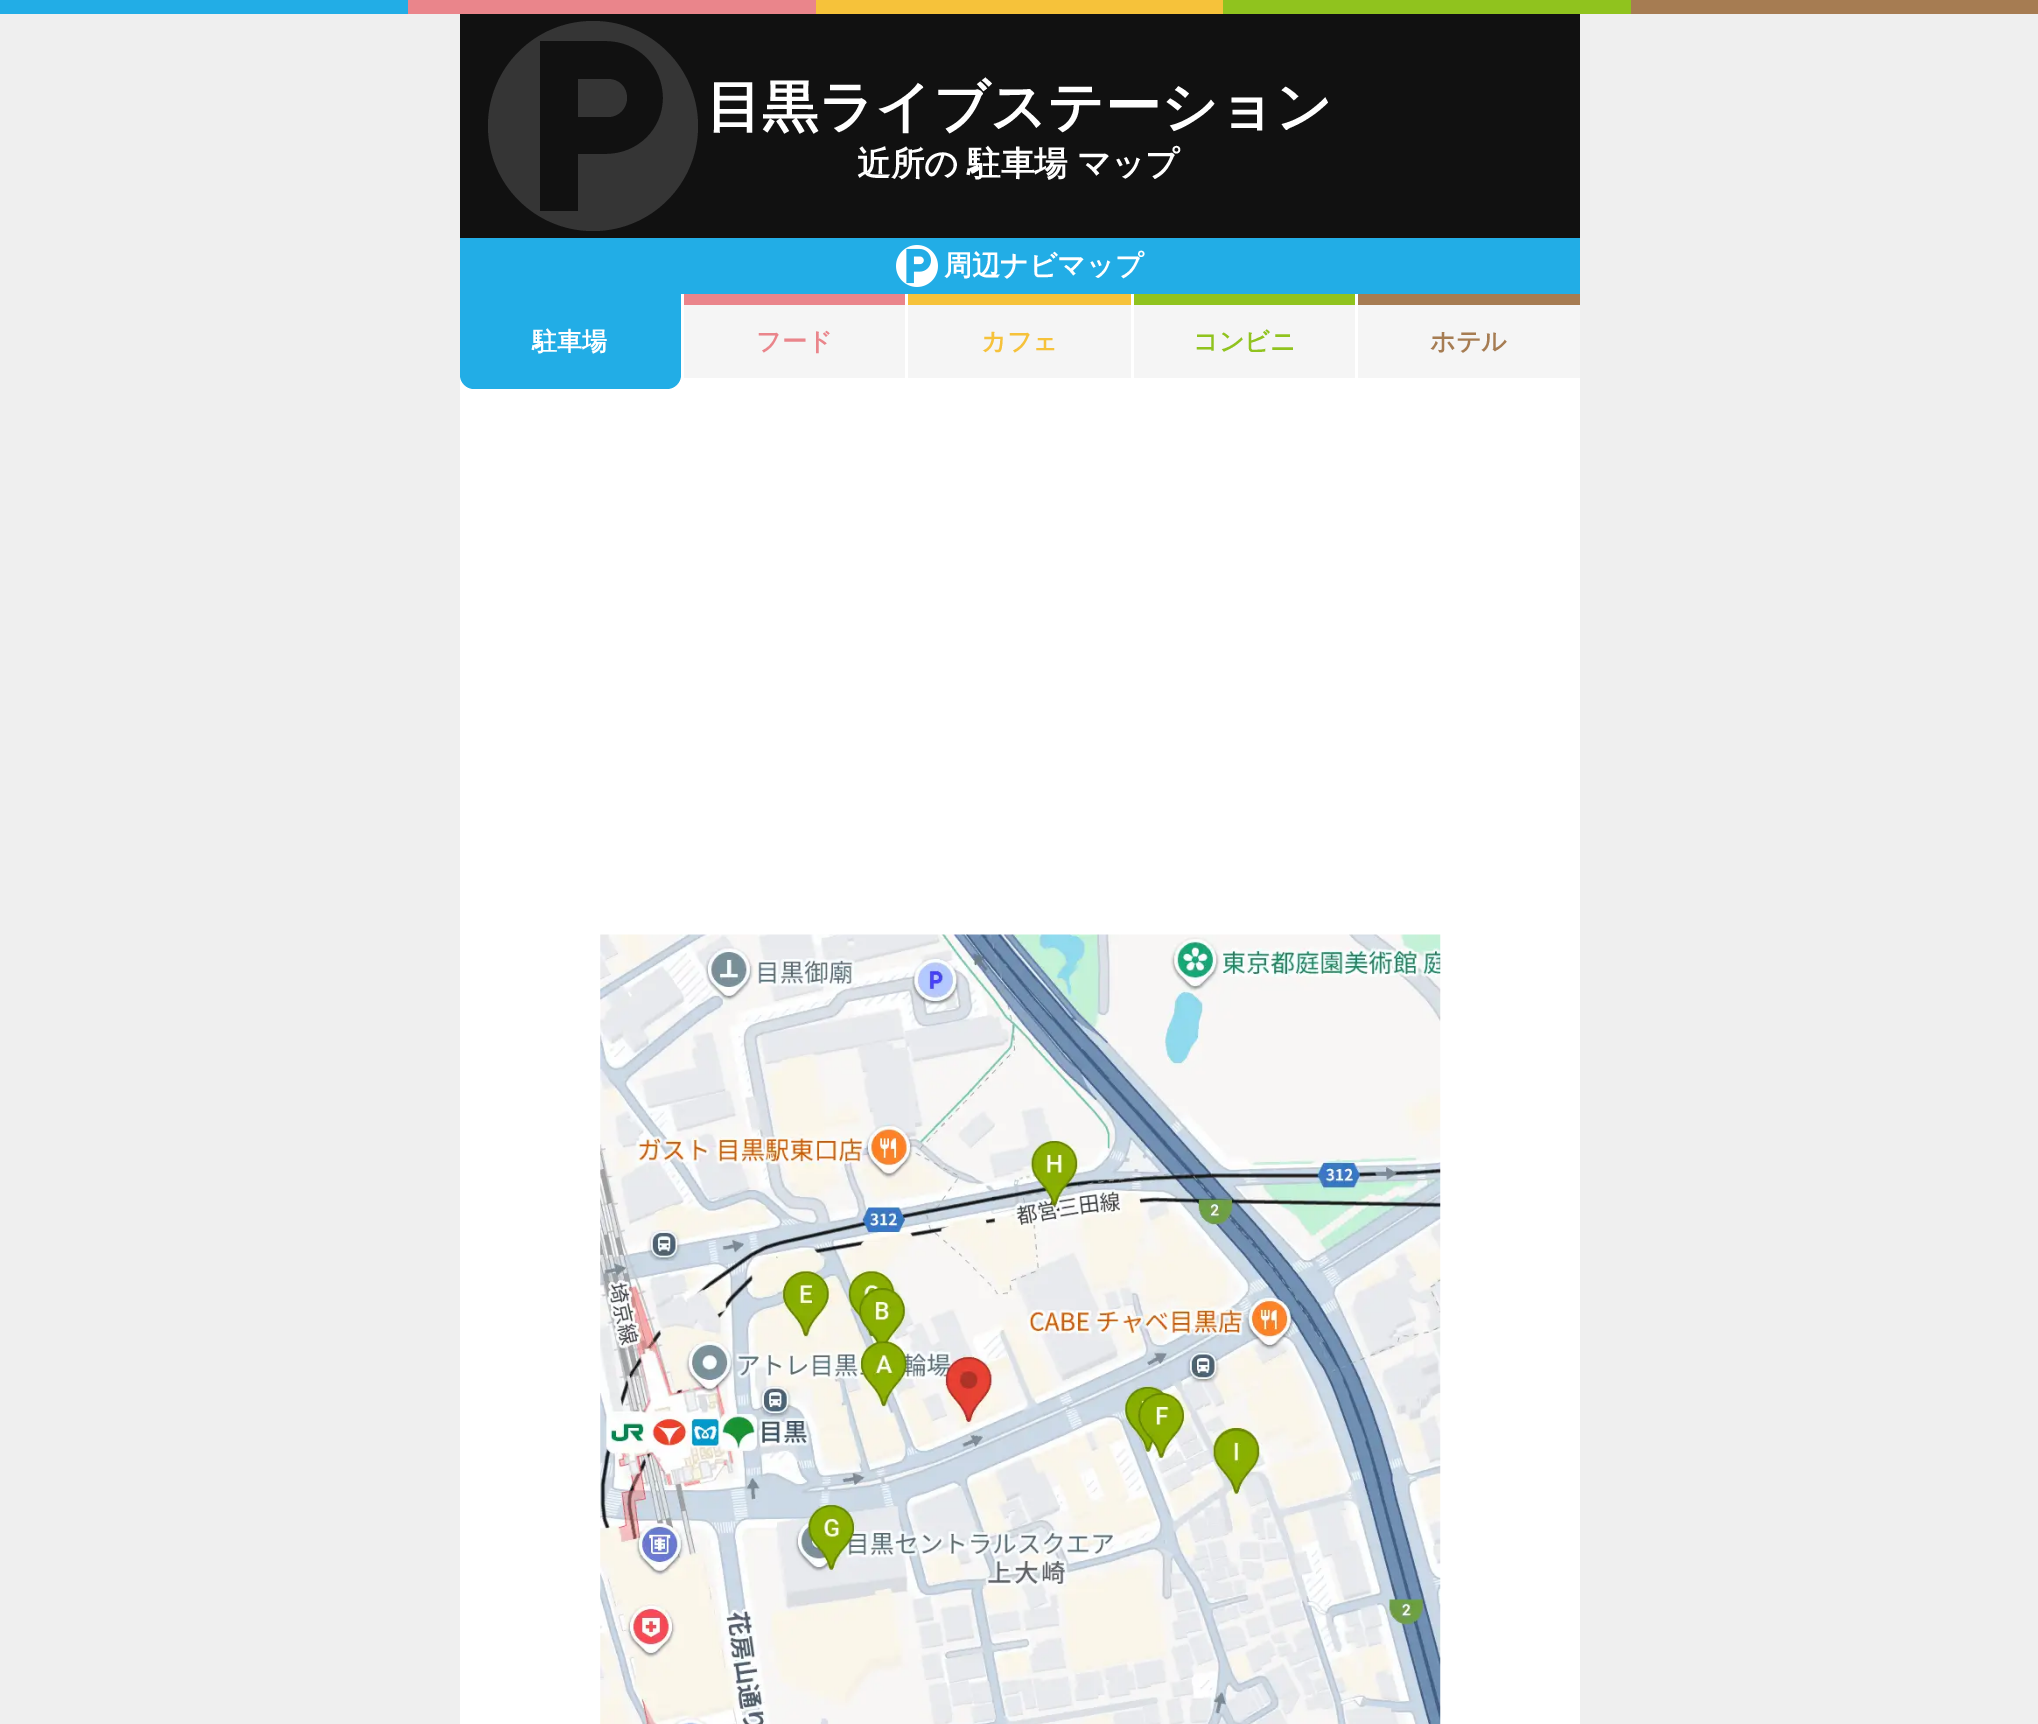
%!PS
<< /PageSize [2038 1724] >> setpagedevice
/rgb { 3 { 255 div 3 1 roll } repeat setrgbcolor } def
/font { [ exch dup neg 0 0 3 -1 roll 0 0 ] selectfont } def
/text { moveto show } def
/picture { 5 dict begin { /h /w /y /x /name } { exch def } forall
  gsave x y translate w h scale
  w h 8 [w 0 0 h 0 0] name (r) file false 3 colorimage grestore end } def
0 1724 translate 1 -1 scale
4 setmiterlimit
239 239 239 rgb
0 0 2038 1724 rectfill
34 173 230 rgb
0 0 408 14 rectfill
234 133 139 rgb
408 0 408 14 rectfill
246 194 58 rgb
816 0 407 14 rectfill
144 195 30 rgb
1223 0 408 14 rectfill
166 124 82 rgb
1631 0 407 14 rectfill
255 255 255 rgb
460 294 1120 1430 rectfill
17 17 17 rgb
460 14 1120 224 rectfill
53 53 53 rgb
593 21 moveto -58 0 -105 47 -105 105 rcurveto 0 58 47 105 105 105 rcurveto 58 0 105 -47 105 -105 rcurveto 0 -58 -47 -105 -105 -105 rcurveto closepath 606 154 moveto -28 0 rlineto 0 57 rlineto -38 0 rlineto 0 -170 rlineto 66 0 rlineto 32 0 57 25 57 57 rcurveto 0 31 -25 56 -57 56 rcurveto closepath fill
608 79 moveto -30 0 rlineto 0 38 rlineto 30 0 rlineto 11 0 19 -9 19 -19 rcurveto 0 -11 -8 -19 -19 -19 rcurveto closepath fill
34 173 230 rgb
460 238 1120 56 rectfill
(img_01.rgb) 896 245 42 42 picture
460 294 moveto 221 0 rlineto 0 81 rlineto 0 7.5 -6.5 14 -14 14 rcurveto -193 0 rlineto -7.5 0 -14 -6.5 -14 -14 rcurveto closepath fill
245 245 245 rgb
684 305 221 73 rectfill
234 133 139 rgb
684 294 221 11 rectfill
245 245 245 rgb
908 305 223 73 rectfill
246 194 58 rgb
908 294 223 11 rectfill
245 245 245 rgb
1134 305 221 73 rectfill
144 195 30 rgb
1134 294 221 11 rectfill
245 245 245 rgb
1358 305 222 73 rectfill
166 124 82 rgb
1358 294 222 11 rectfill
(img_02.rgb) 600 934 841 790 picture
/WenQuanYiZenHei-Bold 56 font
255 255 255 rgb
(目黒ライブステーション) 706 126 text
/WenQuanYiZenHei-Bold 33.5 font
857 175 moveto -1 0 32 (近所の 駐車場 マップ) widthshow
/WenQuanYiZenHei-Bold 28 font
(周辺ナビマップ) 944 275 text
/WenQuanYiZenHei-Bold 25 font
(駐車場) 532 350 text
234 133 139 rgb
(フード) 756 350 text
246 194 58 rgb
(カフェ) 981 350 text
144 195 30 rgb
(コンビニ) 1193 350 text
166 124 82 rgb
(ホテル) 1430 350 text
showpage
